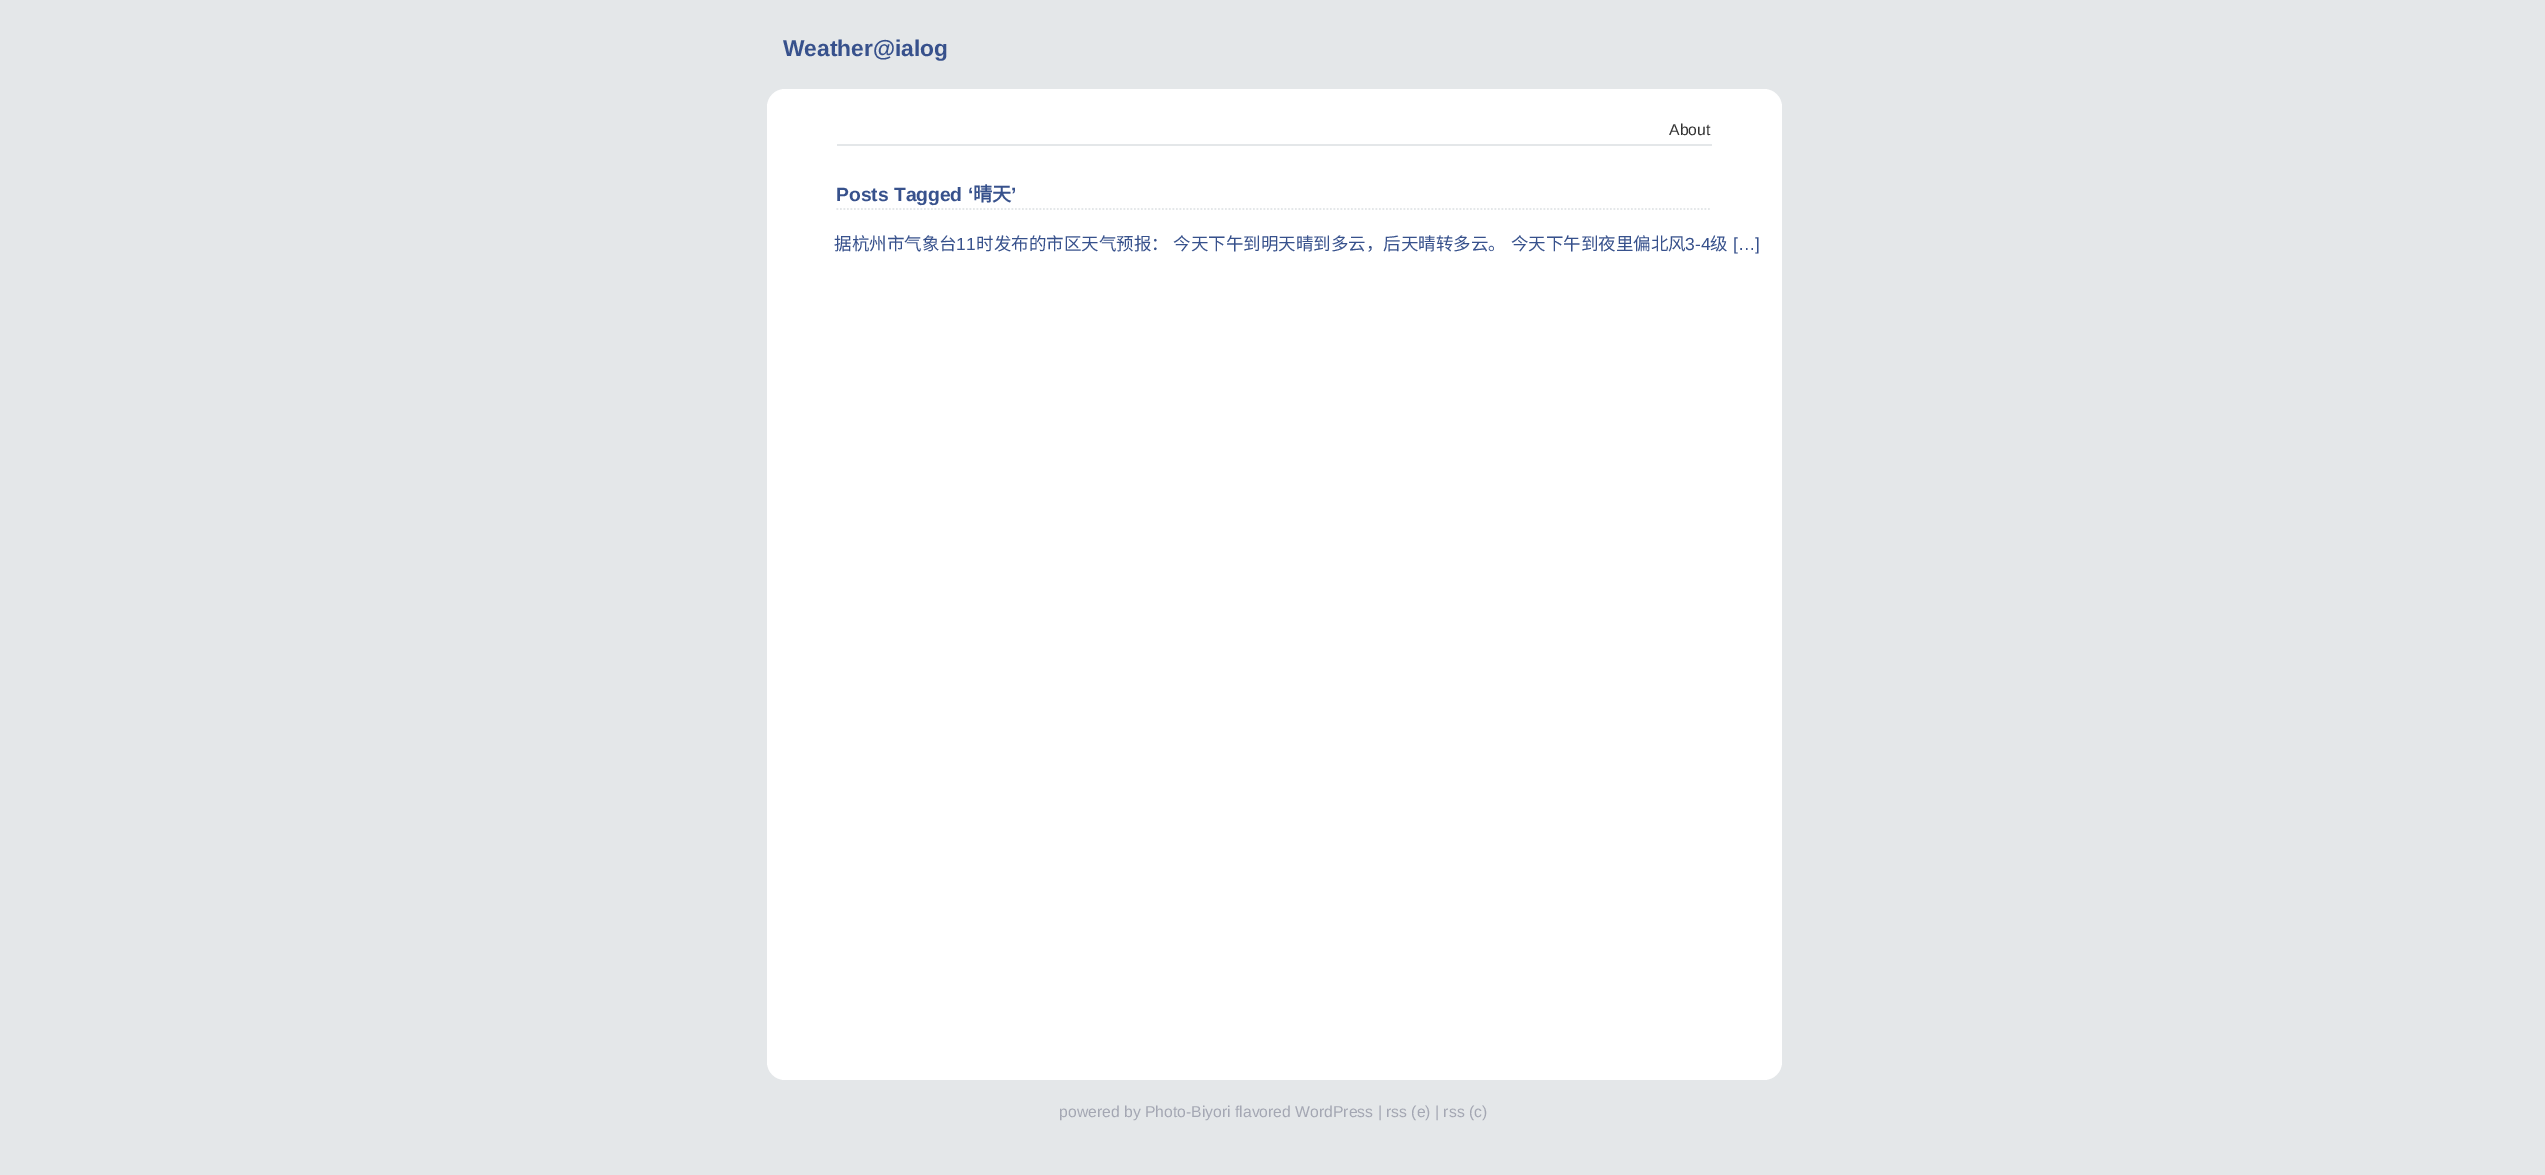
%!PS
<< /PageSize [2545 1175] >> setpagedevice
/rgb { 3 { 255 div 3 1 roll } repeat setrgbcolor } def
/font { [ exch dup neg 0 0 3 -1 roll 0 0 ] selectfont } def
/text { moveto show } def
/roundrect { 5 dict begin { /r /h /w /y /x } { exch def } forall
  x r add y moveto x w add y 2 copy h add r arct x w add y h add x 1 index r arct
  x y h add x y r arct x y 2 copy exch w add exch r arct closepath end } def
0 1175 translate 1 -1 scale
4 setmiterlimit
228 231 233 rgb
0 0 2545 1175 rectfill
255 255 255 rgb
767 89 1015 991 18 roundrect fill
228 231 233 rgb
837 144 875 2 rectfill
1.8 setlinewidth
[1.75 1.75] 0 setdash
836.5 209 moveto 875 0 rlineto stroke
/LiberationSans-Bold 22.75 font
55 81 140 rgb
(Weather@ialog) 783 56 text
/LiberationSans-Regular 15.75 font
51 51 51 rgb
(About) 1669 135 text
/LiberationSans-Bold 19.25 font
55 81 140 rgb
(Posts Tagged ‘) 836 201 text
/NotoSansCJKSC-Bold 19.25 font
(晴天) 973 201 text
/LiberationSans-Bold 19.25 font
(’) 1011 201 text
/NotoSansCJKSC-Regular 17.5 font
(据杭州市气象台) 834 250 text
/LiberationSans-Regular 17.5 font
(11) 956 250 text
/NotoSansCJKSC-Regular 17.5 font
976 250 moveto 1 0 32 (时发布的市区天气预报： 今天下午到明天晴到多云，后天晴转多云。 今天下午到夜里偏北风) widthshow
/LiberationSans-Regular 17.5 font
(3-4) 1685 250 text
/NotoSansCJKSC-Regular 17.5 font
(级) 1710 250 text
/LiberationSans-Regular 17.5 font
([…]) 1733 250 text
/LiberationSans-Regular 15.75 font
164 167 179 rgb
(powered by Photo-Biyori flavored WordPress | rss \(e\) | rss \(c\)) 1059 1117 text
showpage
